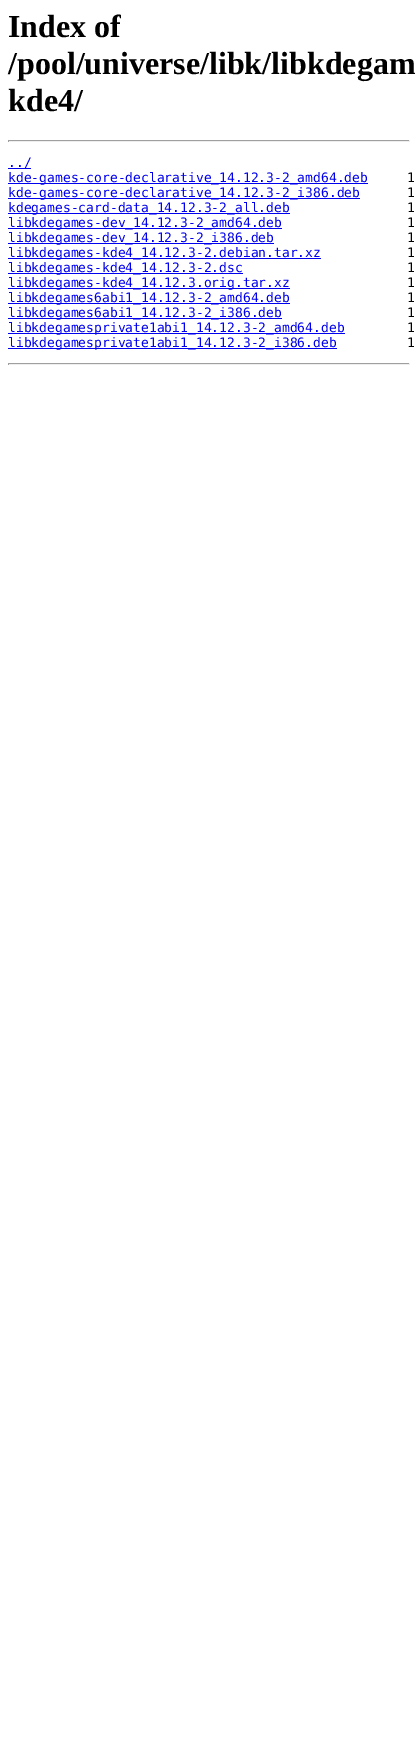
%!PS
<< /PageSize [418 1744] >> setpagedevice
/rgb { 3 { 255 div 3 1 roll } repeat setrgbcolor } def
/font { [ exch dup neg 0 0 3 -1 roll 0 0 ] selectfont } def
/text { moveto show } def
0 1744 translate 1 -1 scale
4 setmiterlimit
255 255 255 rgb
0 0 418 1744 rectfill
159 159 159 rgb
8 140 402 1 rectfill
238 238 238 rgb
409 140 1 2 rectfill
8 141 402 1 rectfill
159 159 159 rgb
8 140 1 2 rectfill
0 0 238 rgb
8 168 23 1 rectfill
8 183 360 1 rectfill
8 198 352 1 rectfill
8 213 282 1 rectfill
8 228 274 1 rectfill
8 243 266 1 rectfill
8 258 313 1 rectfill
8 273 235 1 rectfill
8 288 282 1 rectfill
8 303 282 1 rectfill
8 318 274 1 rectfill
8 333 337 1 rectfill
8 348 329 1 rectfill
159 159 159 rgb
8 363 402 1 rectfill
238 238 238 rgb
409 363 1 2 rectfill
8 364 402 1 rectfill
159 159 159 rgb
8 363 1 2 rectfill
/LiberationSerif-Bold 32 font
0 0 0 rgb
(Index of) 8 37 text
(/pool/universe/libk/libkdegam) 8 74 text
(kde4/) 8 111 text
/DejaVuSansMono-Regular 13 font
0 0 238 rgb
(../) 8 167 text
(kde-games-core-declarative_14.12.3-2_amd64.deb) 8 182 text
0 0 0 rgb
(1) 407 182 text
0 0 238 rgb
(kde-games-core-declarative_14.12.3-2_i386.deb) 8 197 text
0 0 0 rgb
(1) 407 197 text
0 0 238 rgb
(kdegames-card-data_14.12.3-2_all.deb) 8 212 text
0 0 0 rgb
(1) 407 212 text
0 0 238 rgb
(libkdegames-dev_14.12.3-2_amd64.deb) 8 227 text
0 0 0 rgb
(1) 407 227 text
0 0 238 rgb
(libkdegames-dev_14.12.3-2_i386.deb) 8 242 text
0 0 0 rgb
(1) 407 242 text
0 0 238 rgb
(libkdegames-kde4_14.12.3-2.debian.tar.xz) 8 257 text
0 0 0 rgb
(1) 407 257 text
0 0 238 rgb
(libkdegames-kde4_14.12.3-2.dsc) 8 272 text
0 0 0 rgb
(1) 407 272 text
0 0 238 rgb
(libkdegames-kde4_14.12.3.orig.tar.xz) 8 287 text
0 0 0 rgb
(1) 407 287 text
0 0 238 rgb
(libkdegames6abi1_14.12.3-2_amd64.deb) 8 302 text
0 0 0 rgb
(1) 407 302 text
0 0 238 rgb
(libkdegames6abi1_14.12.3-2_i386.deb) 8 317 text
0 0 0 rgb
(1) 407 317 text
0 0 238 rgb
(libkdegamesprivate1abi1_14.12.3-2_amd64.deb) 8 332 text
0 0 0 rgb
(1) 407 332 text
0 0 238 rgb
(libkdegamesprivate1abi1_14.12.3-2_i386.deb) 8 347 text
0 0 0 rgb
(1) 407 347 text
showpage
